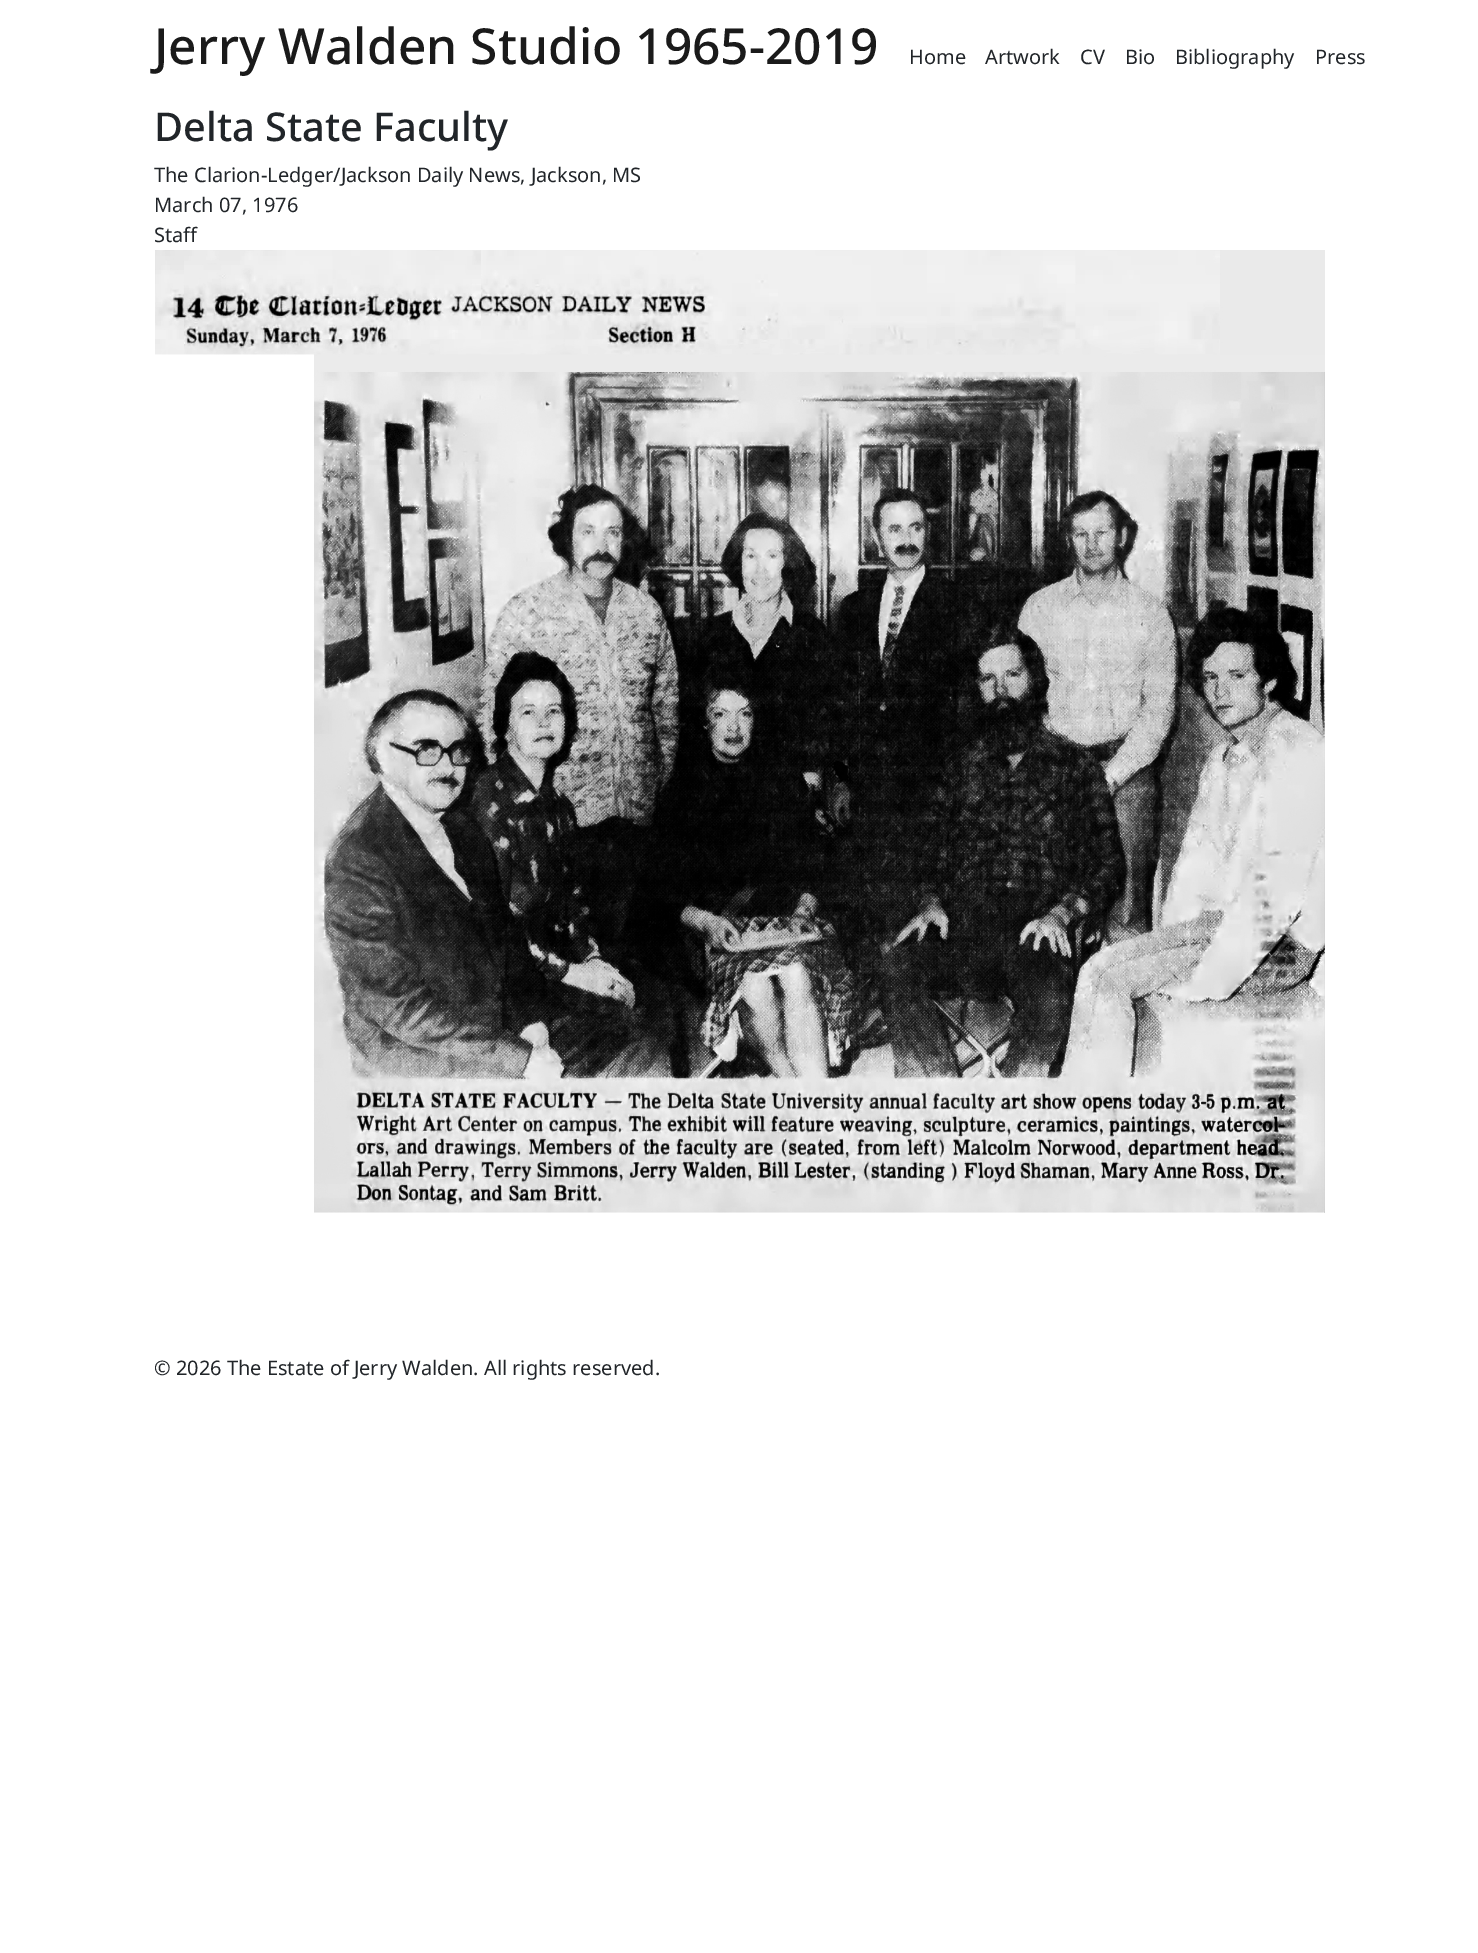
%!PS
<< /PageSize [1478 1953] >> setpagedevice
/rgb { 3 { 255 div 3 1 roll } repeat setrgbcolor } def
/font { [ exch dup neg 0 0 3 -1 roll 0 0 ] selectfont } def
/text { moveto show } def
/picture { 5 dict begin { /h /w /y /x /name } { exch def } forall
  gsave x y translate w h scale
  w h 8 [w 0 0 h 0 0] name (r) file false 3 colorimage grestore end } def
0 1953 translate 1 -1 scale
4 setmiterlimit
255 255 255 rgb
0 0 1478 1953 rectfill
(img_01.rgb) 155 250 1170 963 picture
/NotoSans-Medium 49.7 font
26 26 26 rgb
(Jerry Walden Studio 1965-2019) 154 64 text
/NotoSans-Regular 20 font
33 37 41 rgb
(Home) 909 64 text
(Artwork) 985 64 text
(CV) 1080 64 text
(Bio) 1125 64 text
(Bibliography) 1175 64 text
(Press) 1315 64 text
/NotoSans-Medium 39.75 font
(Delta State Faculty) 154 141 text
/NotoSans-Regular 20 font
(The Clarion-Ledger/Jackson Daily News, Jackson, MS) 154 182 text
(March 07, 1976) 154 212 text
(Staff) 154 242 text
(© 2026 The Estate of Jerry Walden. All rights reserved.) 154 1375 text
showpage
